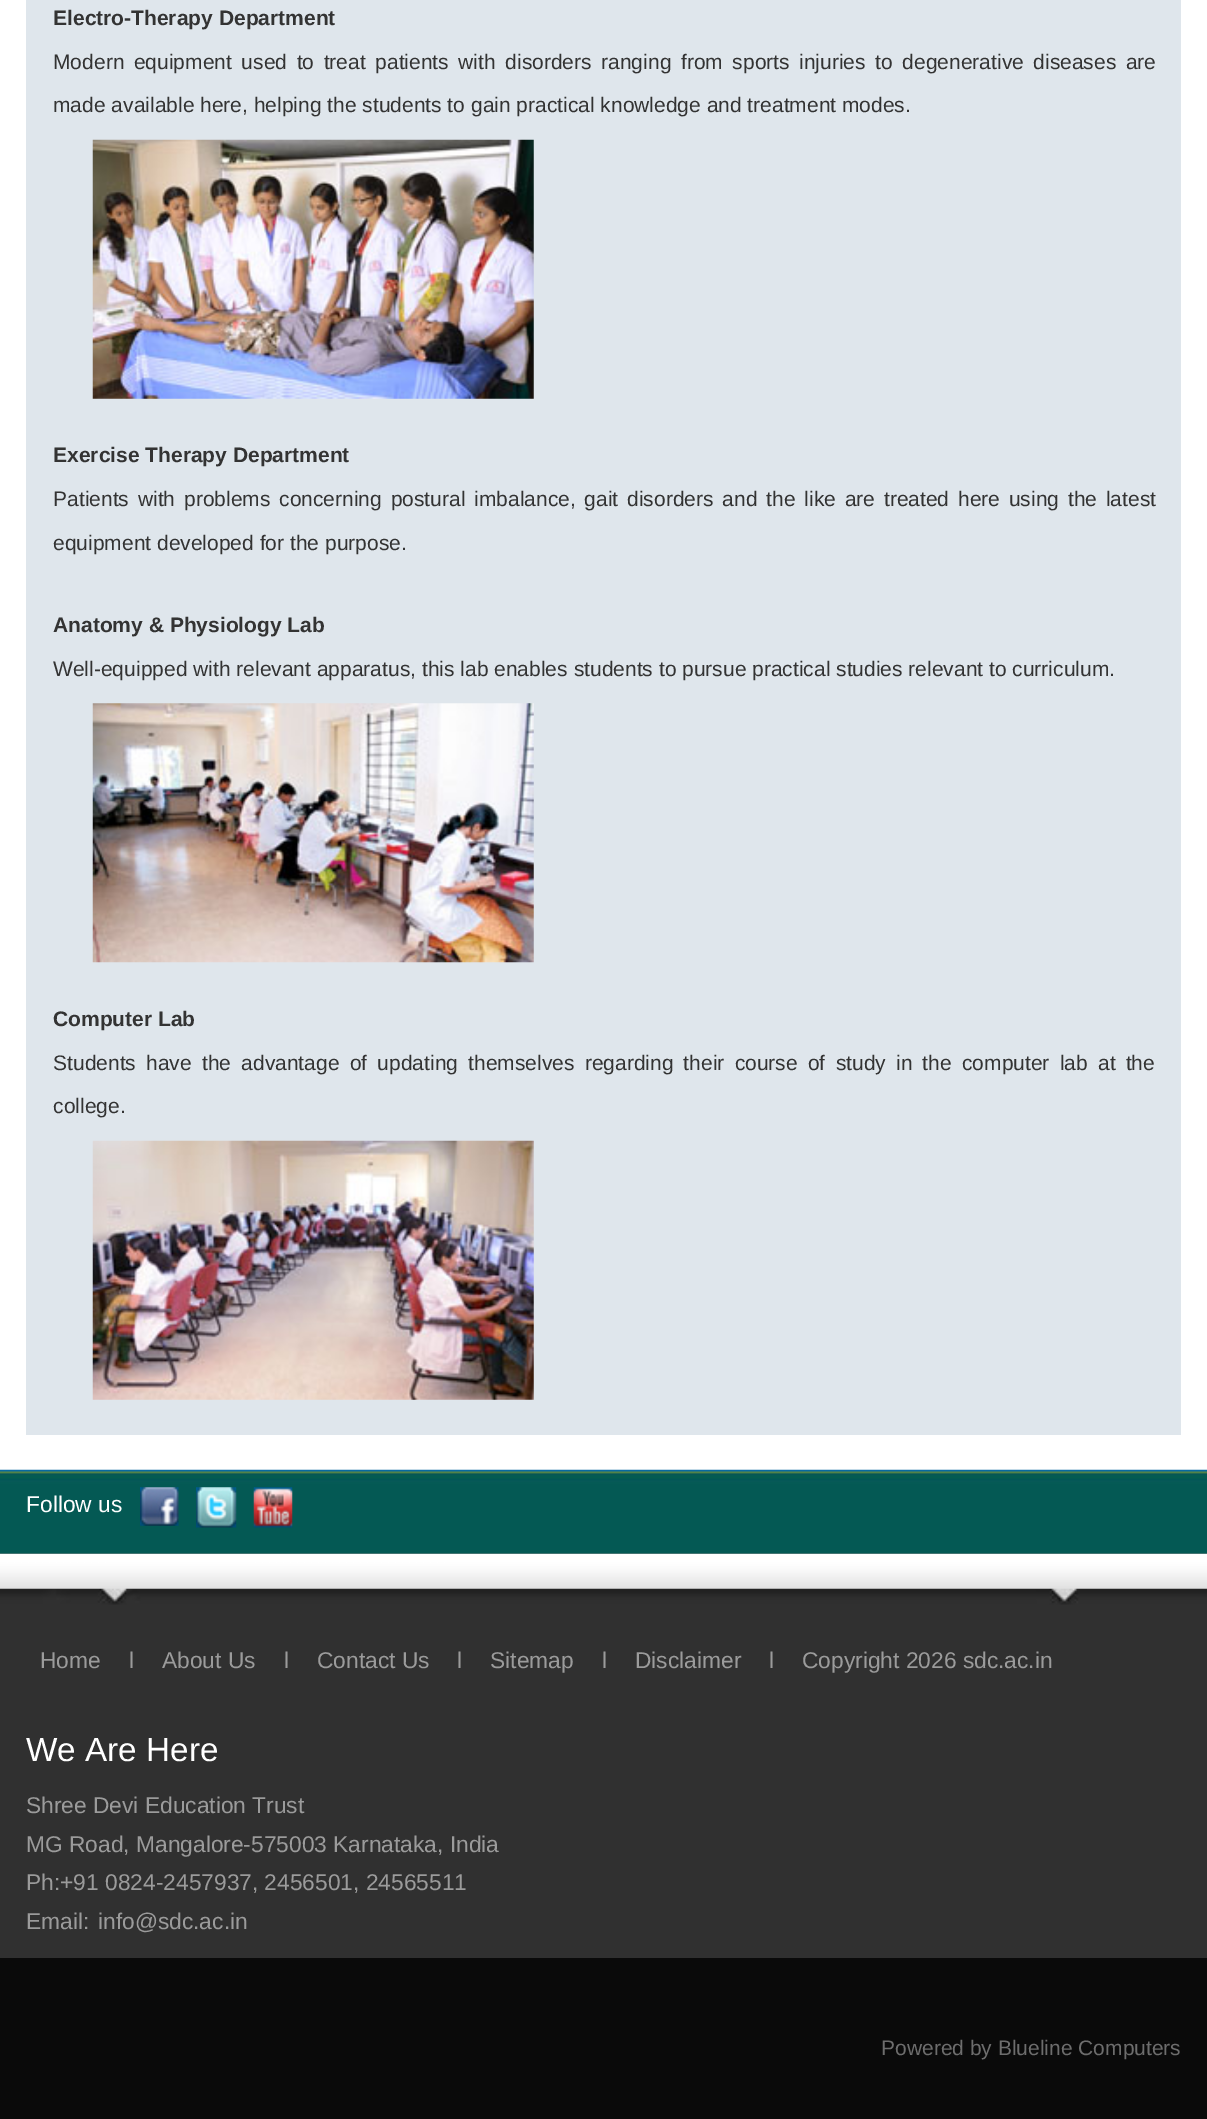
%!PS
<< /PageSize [1207 2119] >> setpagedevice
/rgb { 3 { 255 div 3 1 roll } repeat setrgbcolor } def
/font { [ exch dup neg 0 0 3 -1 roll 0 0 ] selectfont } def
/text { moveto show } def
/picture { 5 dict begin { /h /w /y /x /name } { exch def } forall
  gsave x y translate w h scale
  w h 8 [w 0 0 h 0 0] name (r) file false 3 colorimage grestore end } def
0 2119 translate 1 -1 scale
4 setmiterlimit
255 255 255 rgb
0 0 1207 2119 rectfill
223 230 236 rgb
26 0 1155 1435 rectfill
(img_01.rgb) 92 139 442 260 picture
(img_02.rgb) 92 703 442 260 picture
(img_03.rgb) 92 1140 442 260 picture
10 10 10 rgb
0 1553 1207 566 rectfill
(img_04.rgb) 0 1469 1207 85 picture
(img_05.rgb) 140 1487 39 39 picture
(img_06.rgb) 196 1487 41 41 picture
(img_07.rgb) 253 1487 40 41 picture
(img_08.rgb) 0 1553 1207 36 picture
48 48 48 rgb
0 1604 1207 354 rectfill
(img_09.rgb) 0 1588 1207 17 picture
/LiberationSans-Bold 21 font
51 51 51 rgb
(Electro-Therapy Department) 53 25 text
/LiberationSans-Regular 21 font
53 69 moveto 3.75 0 32 (Modern equipment used to treat patients with disorders ranging from sports injuries to degenerative diseases are) widthshow
(made available here, helping the students to gain practical knowledge and treatment modes.) 53 112 text
/LiberationSans-Bold 21 font
(Exercise Therapy Department) 53 462 text
/LiberationSans-Regular 21 font
53 506 moveto 3 0 32 (Patients with problems concerning postural imbalance, gait disorders and the like are treated here using the latest) widthshow
(equipment developed for the purpose.) 53 550 text
/LiberationSans-Bold 21 font
(Anatomy & Physiology Lab) 53 632 text
/LiberationSans-Regular 21 font
(Well-equipped with relevant apparatus, this lab enables students to pursue practical studies relevant to curriculum.) 53 676 text
/LiberationSans-Bold 21 font
(Computer Lab) 53 1026 text
/LiberationSans-Regular 21 font
53 1070 moveto 4.4 0 32 (Students have the advantage of updating themselves regarding their course of study in the computer lab at the) widthshow
(college.) 53 1113 text
/LiberationSans-Regular 22.75 font
255 255 255 rgb
(Follow us) 26 1512 text
155 155 155 rgb
(Home) 40 1668 text
(l) 129 1668 text
(About Us) 162 1668 text
(l) 284 1668 text
(Contact Us) 317 1668 text
(l) 457 1668 text
(Sitemap) 490 1668 text
(l) 602 1668 text
(Disclaimer) 635 1668 text
(l) 769 1668 text
(Copyright 2026 sdc.ac.in) 802 1668 text
/LiberationSans-Regular 33.25 font
255 255 255 rgb
(We Are Here) 26 1761 text
/LiberationSans-Regular 22.75 font
155 155 155 rgb
(Shree Devi Education Trust) 26 1813 text
(MG Road, Mangalore-575003 Karnataka, India) 26 1852 text
(Ph:+91 0824-2457937, 2456501, 24565511) 26 1890 text
(Email:) 26 1929 text
(info@sdc.ac.in) 98 1929 text
/LiberationSans-Regular 21 font
109 109 109 rgb
(Powered by Blueline Computers) 881 2055 text
showpage
